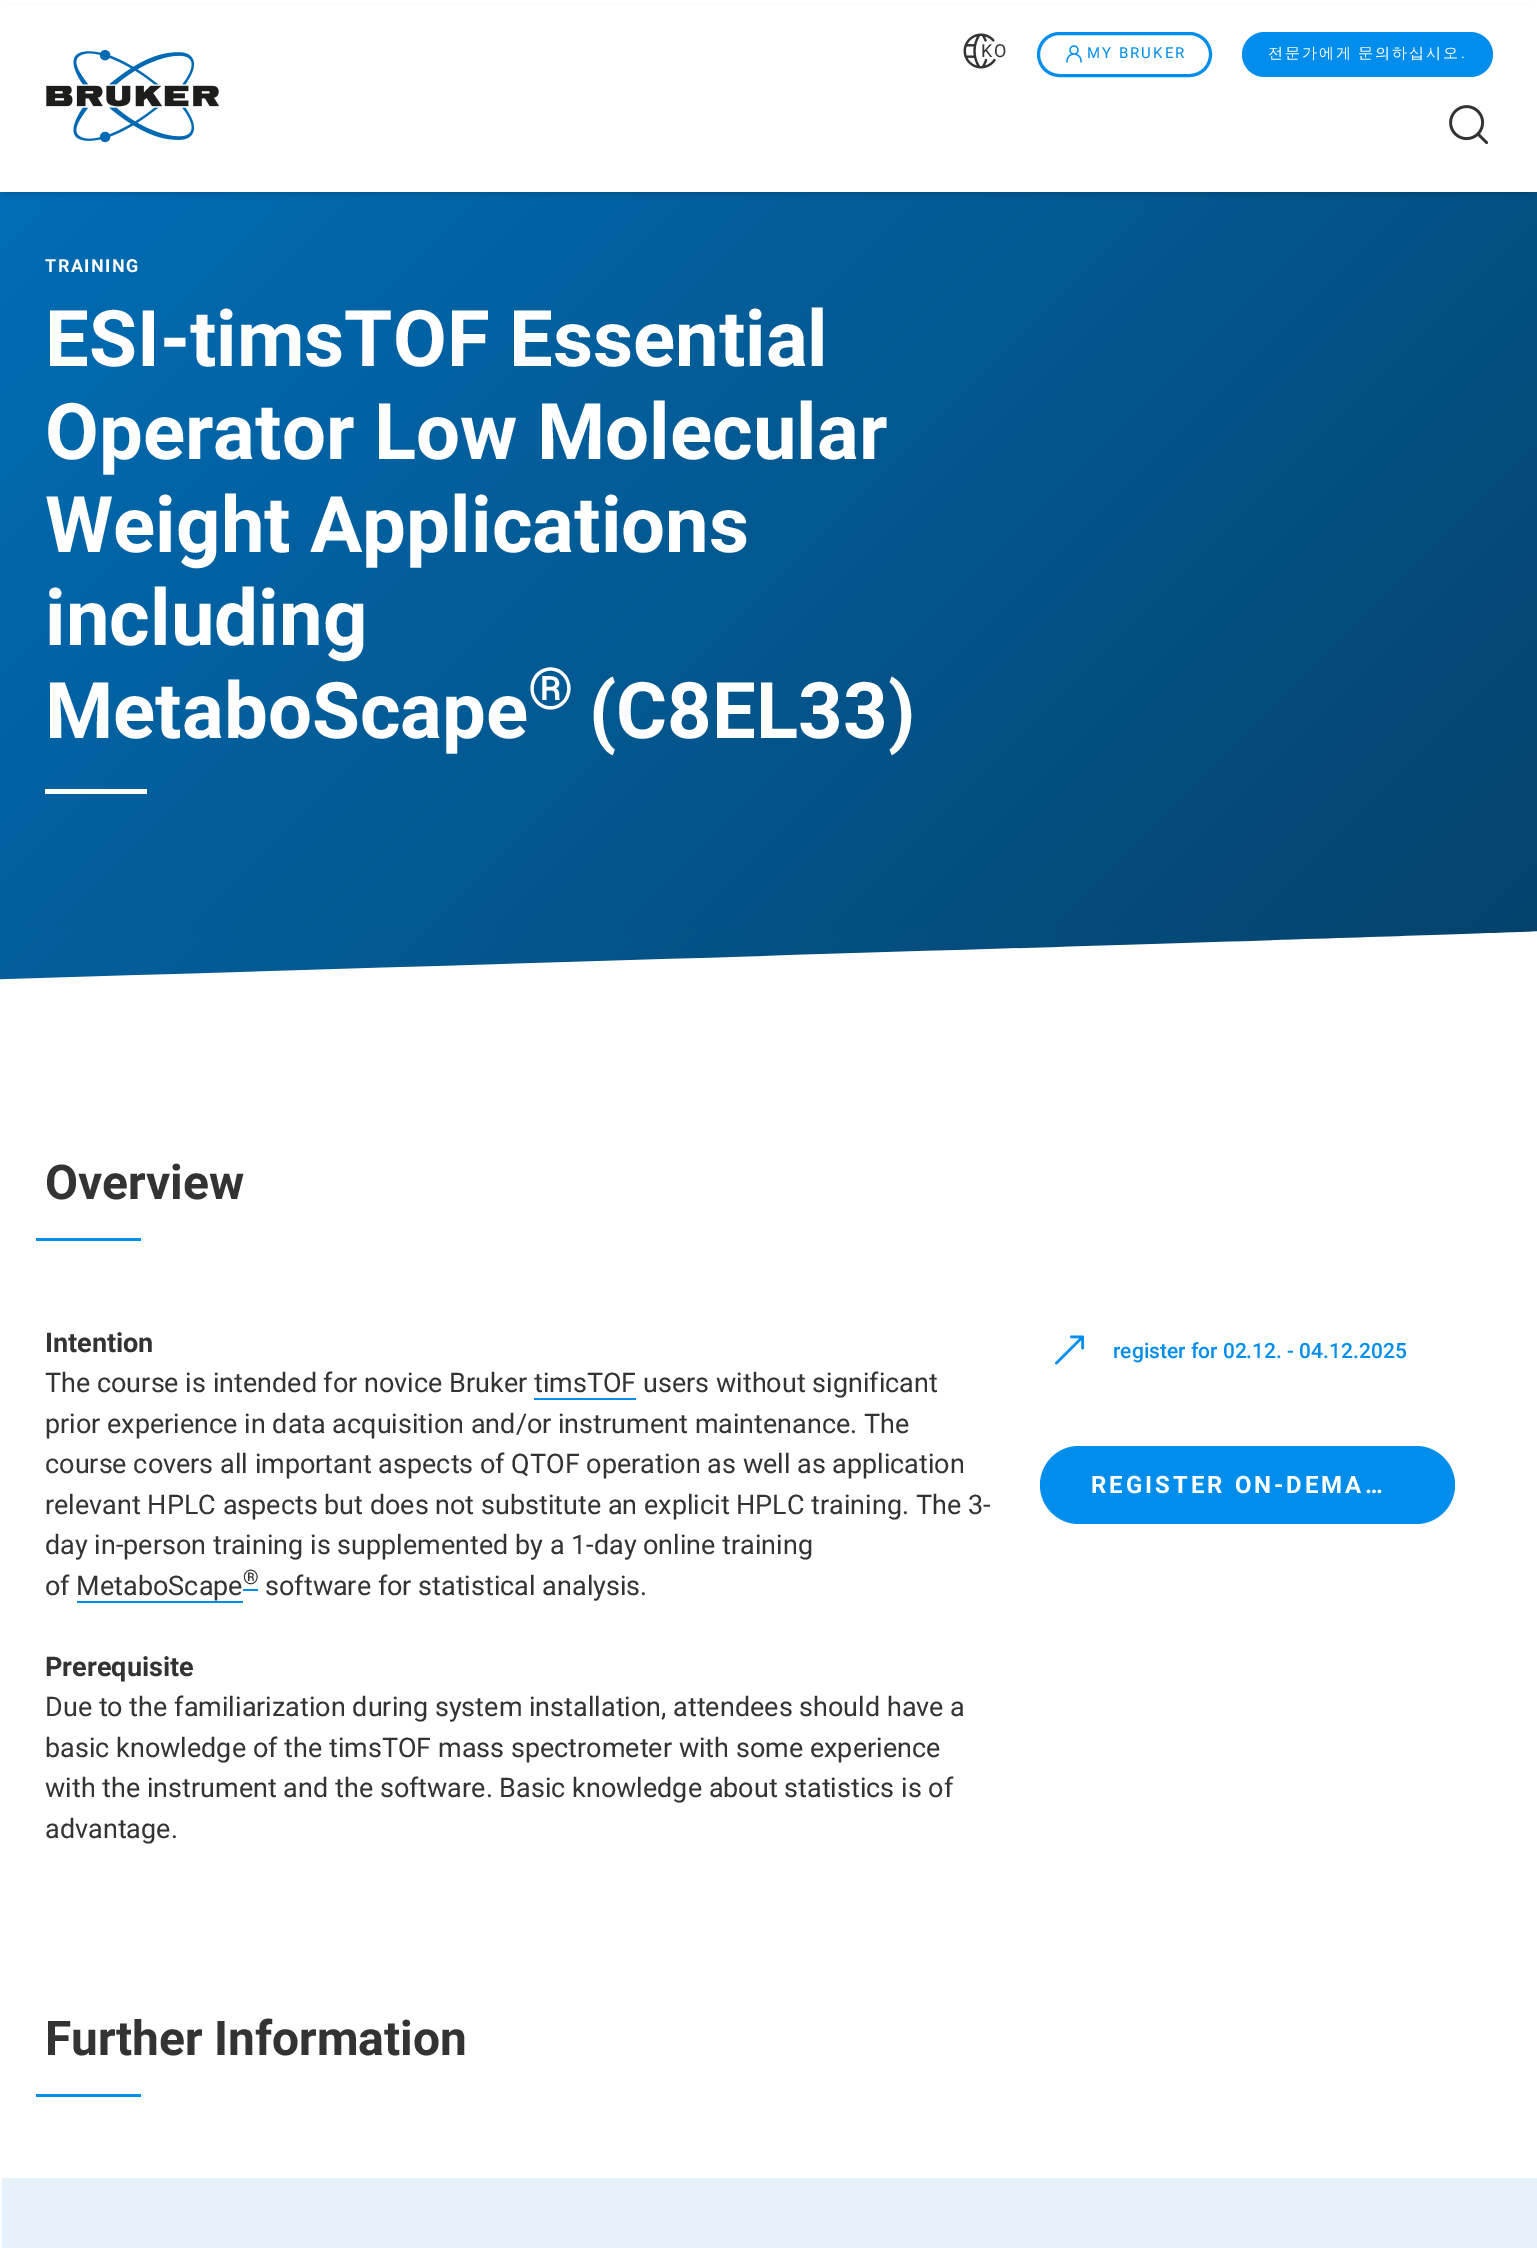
%!PS
<< /PageSize [1537 2248] /PageUsesTransparency true >> setpagedevice
/rgb { 3 { 255 div 3 1 roll } repeat setrgbcolor } def
/font { [ exch dup neg 0 0 3 -1 roll 0 0 ] selectfont } def
/text { moveto show } def
/alpha { dup .setfillconstantalpha .setstrokeconstantalpha } def
/roundrect { 5 dict begin { /r /h /w /y /x } { exch def } forall
  x r add y moveto x w add y 2 copy h add r arct x w add y h add x 1 index r arct
  x y h add x y r arct x y 2 copy exch w add exch r arct closepath end } def
/shadow { 12 dict begin { /a /b /q /h /w /y /x } { exch def } forall gsave /was 0 def
  9 -2 -9 { dup b mul 4 div /e exch def 1 sub .425 mul 2.718 exch exp 1 add a .99 .min exch div /now exch def
    1 1 now sub 1 was sub div sub alpha /was now def
    w h .min e 2 mul add 0 gt { x e sub y e sub w e 2 mul add h e 2 mul add
      q e add b .6 mul add w h .min 2 div e add .min 0 .max roundrect fill } if } for grestore end } def
/picture { 5 dict begin { /h /w /y /x /name } { exch def } forall
  gsave x y translate w h scale
  w h 8 [w 0 0 h 0 0] name (r) file false 3 colorimage grestore end } def
0 .pushpdf14devicefilter
0 2248 translate 1 -1 scale
4 setmiterlimit
255 255 255 rgb
0 0 1537 2248 rectfill
gsave 0 192 moveto 1537 0 rlineto 0 788 rlineto -1537 0 rlineto closepath clip newpath
<< /ShadingType 2 /ColorSpace /DeviceRGB /Coords [1408 1148 130 -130] /Extend [true true] /Function << /FunctionType 2 /Domain [0 1] /C0 [0.02 0.255 0.412] /C1 [0 0.443 0.737] /N 1 >> >> shfill grestore
0 0 0 rgb
6 12 1526 180 0 4 0.25 shadow
255 255 255 rgb
0 5 1537 187 rectfill
(img_01.rgb) 46 50 173 93 picture
(img_02.rgb) 963 33 33 36 picture
0 141 235 rgb
3 setlinewidth
1038.5 33.5 172 42 21 roundrect stroke
(img_03.rgb) 1066 45 16 18 picture
1242 32 251 45 22.5 roundrect fill
(img_04.rgb) 1449 105 40 40 picture
255 255 255 rgb
45 789 102 5 rectfill
(img_05.rgb) 0 931 1537 88 picture
0 141 235 rgb
36 1238 105 3 rectfill
534 1398 102 2 rectfill
77 1601 166 2 rectfill
243 1589 15 2 rectfill
(img_06.rgb) 1055 1335 30 30 picture
1040 1446 415 78 39 roundrect fill
36 2094 105 3 rectfill
230 241 249 rgb
2 2178 1535 70 rectfill
/Roboto-Regular 18 font
51 51 51 rgb
981 57 moveto 1.5 0 (KO) ashow
/Roboto-Regular 15 font
0 141 235 rgb
1087 58 moveto 2 0 (MY BRUKER) ashow
/WenQuanYiZenHei-Medium 15 font
255 255 255 rgb
1268 58 moveto -1 0 32 2 0 (전문가에게 문의하십시오) awidthshow
/Roboto-Regular 15 font
1461 58 moveto 2 0 (.) ashow
/Roboto-Bold 18 font
45 272 moveto 1.5 0 (TRAINING) ashow
/Roboto-Bold 78 font
(ESI-timsTOF Essential) 45 366 text
(Operator Low Molecular) 45 459 text
(Weight Applications) 45 552 text
(including) 45 645 text
(MetaboScape) 45 738 text
/Roboto-Bold 58 font
(®) 528 709 text
/Roboto-Bold 78 font
(\(C8EL33\)) 589 738 text
/Roboto-Bold 48 font
51 51 51 rgb
(Overview) 45 1199 text
/Roboto-Bold 27 font
(Intention) 45 1352 text
/Roboto-Regular 27 font
(The course is intended for novice Bruker timsTOF) 45 1392 text
(users without significant) 643 1392 text
(prior experience in data acquisition and/or instrument maintenance. The) 45 1433 text
(course covers all important aspects of QTOF operation as well as application) 45 1473 text
(relevant HPLC aspects but does not substitute an explicit HPLC training. The 3-) 45 1514 text
(day in-person training is supplemented by a 1-day online training) 45 1554 text
(of MetaboScape) 45 1595 text
/Roboto-Regular 20 font
(®) 243 1584 text
/Roboto-Regular 27 font
(software for statistical analysis.) 265 1595 text
/Roboto-Bold 27 font
(Prerequisite) 45 1676 text
/Roboto-Regular 27 font
(Due to the familiarization during system installation, attendees should have a) 45 1716 text
(basic knowledge of the timsTOF mass spectrometer with some experience) 45 1757 text
(with the instrument and the software. Basic knowledge about statistics is of) 45 1797 text
(advantage.) 45 1838 text
/Roboto-Medium 21 font
0 141 235 rgb
(register for 02.12. - 04.12.2025) 1113 1358 text
/Roboto-Bold 24 font
255 255 255 rgb
1091 1493 moveto 3 0 (REGISTER ON-DEMA…) ashow
/Roboto-Bold 48 font
51 51 51 rgb
(Further Information) 45 2055 text
.poppdf14devicefilter showpage
